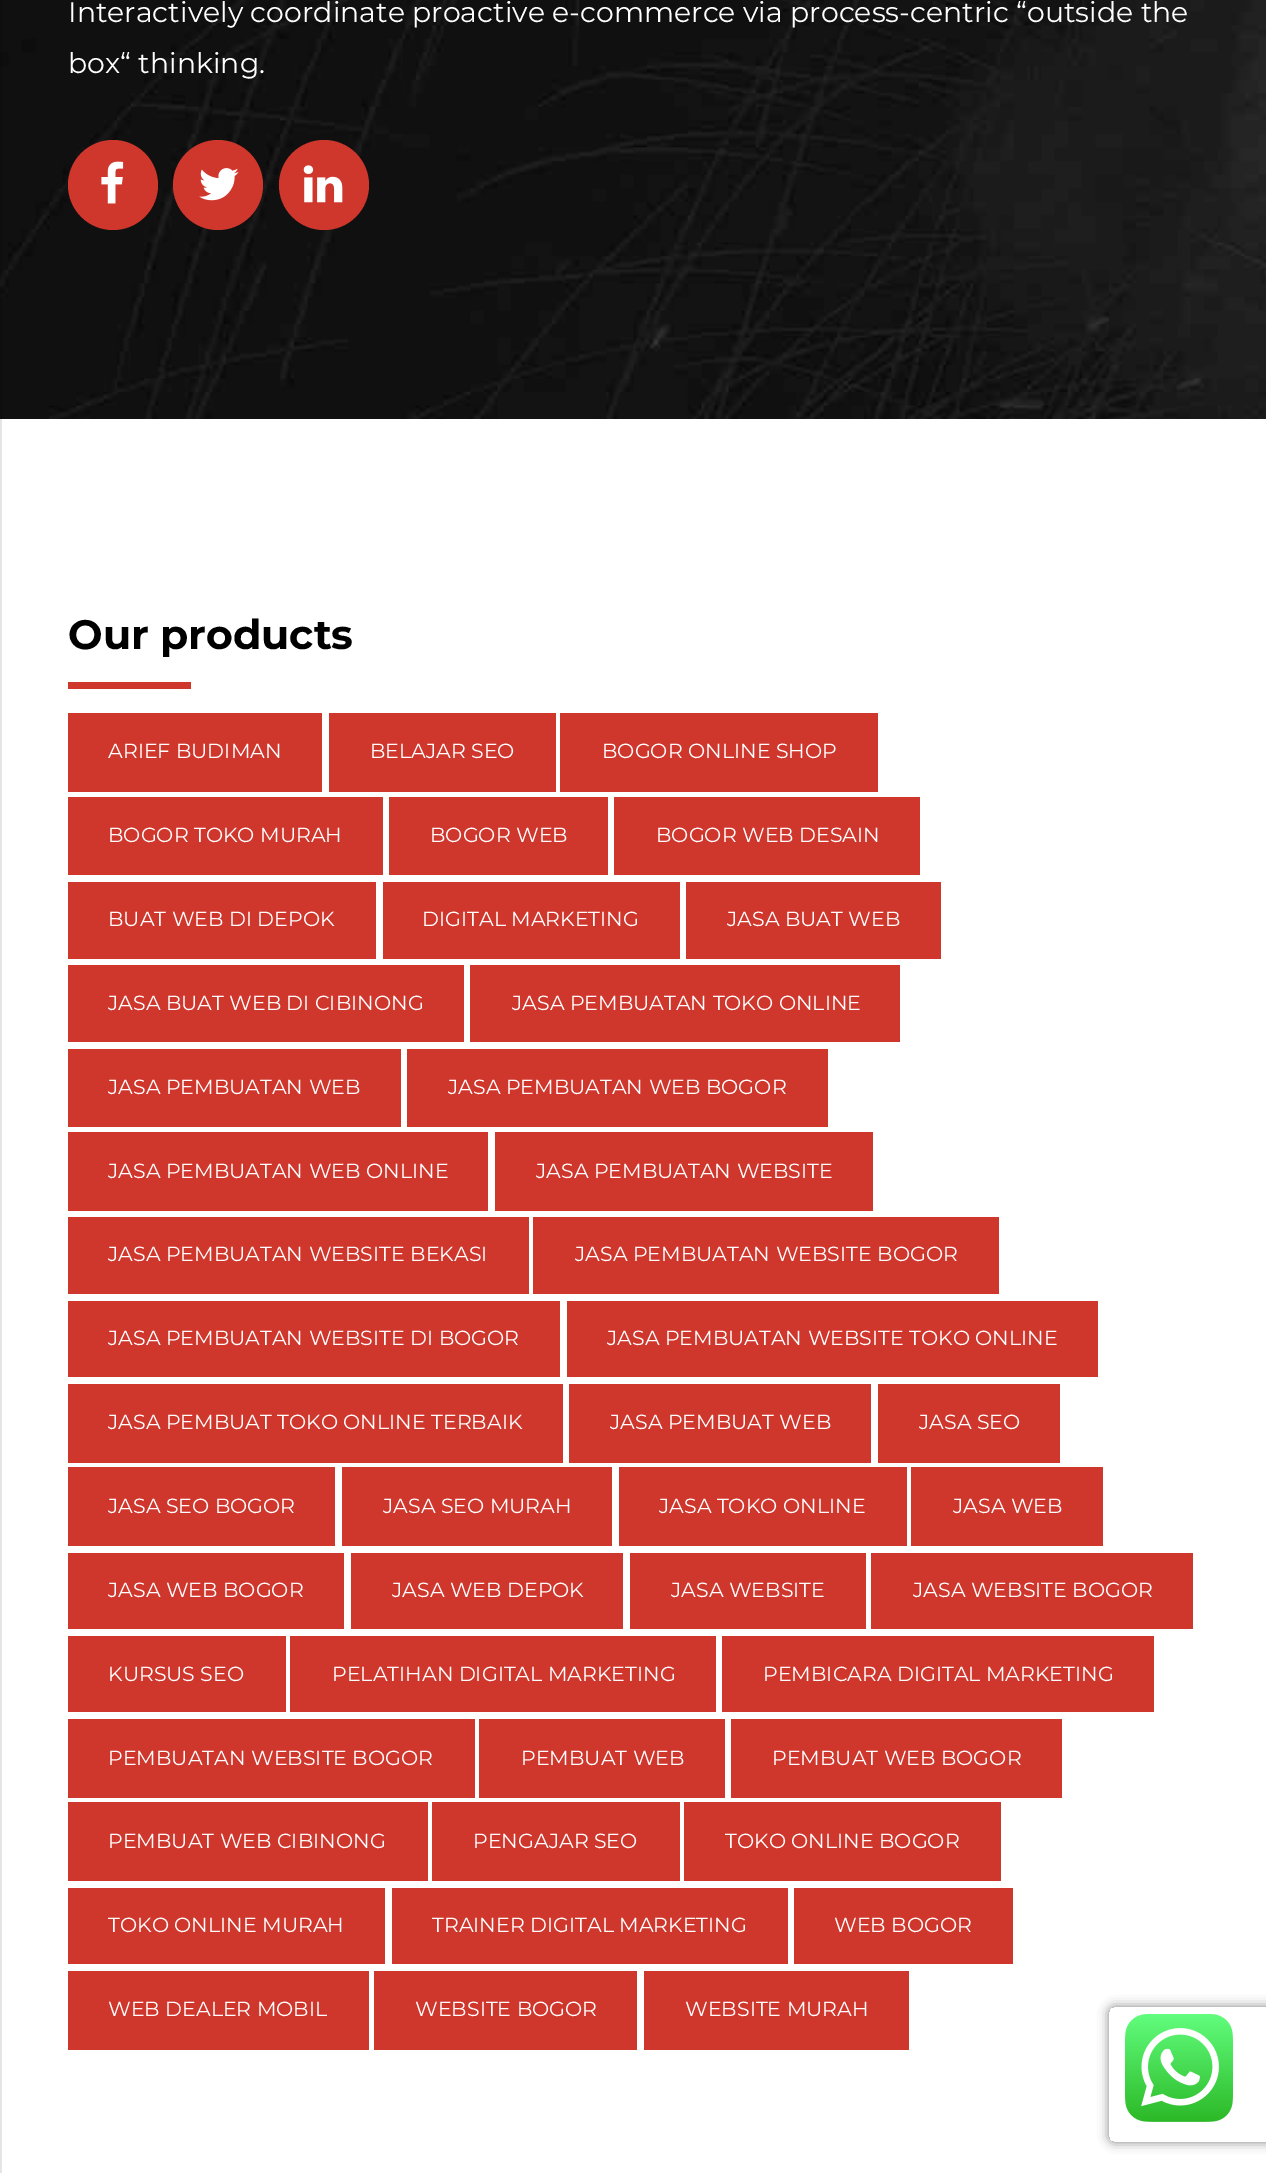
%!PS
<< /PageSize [1266 2173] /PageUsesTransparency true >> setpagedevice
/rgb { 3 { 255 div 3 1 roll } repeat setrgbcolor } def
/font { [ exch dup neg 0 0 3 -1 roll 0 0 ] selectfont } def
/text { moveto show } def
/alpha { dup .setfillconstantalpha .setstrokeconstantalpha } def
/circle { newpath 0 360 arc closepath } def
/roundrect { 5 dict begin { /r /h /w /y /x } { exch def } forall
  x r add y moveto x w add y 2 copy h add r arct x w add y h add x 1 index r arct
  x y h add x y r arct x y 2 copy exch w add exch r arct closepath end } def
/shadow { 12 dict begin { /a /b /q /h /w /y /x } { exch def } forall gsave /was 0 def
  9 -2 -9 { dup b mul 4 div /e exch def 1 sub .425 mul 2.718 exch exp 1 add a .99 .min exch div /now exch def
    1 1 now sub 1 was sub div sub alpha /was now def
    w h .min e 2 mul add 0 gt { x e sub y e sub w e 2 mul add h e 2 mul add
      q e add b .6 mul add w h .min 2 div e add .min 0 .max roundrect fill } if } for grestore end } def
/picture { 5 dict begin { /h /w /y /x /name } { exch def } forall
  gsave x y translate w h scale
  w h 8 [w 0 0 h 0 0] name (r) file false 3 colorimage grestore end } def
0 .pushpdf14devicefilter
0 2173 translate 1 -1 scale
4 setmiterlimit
255 255 255 rgb
0 0 1266 2173 rectfill
(img_01.rgb) 0 0 1266 419 picture
0.1 alpha
0 0 0 rgb
-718 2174 moveto 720 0 rlineto 0 -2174 rlineto -2 0 rlineto 0 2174 rlineto closepath fill
1 alpha
207 55 45 rgb
113 185 45 circle fill
(img_02.rgb) 101 161 23 43 picture
218 185 45 circle fill
(img_03.rgb) 199 168 40 33 picture
324 185 45 circle fill
(img_04.rgb) 303 165 40 38 picture
68 682 123 7 rectfill
68 713 254 79 rectfill
329 713 227 79 rectfill
560 713 318 79 rectfill
68 797 315 78 rectfill
389 797 219 78 rectfill
614 797 306 78 rectfill
68 882 308 77 rectfill
383 882 297 77 rectfill
686 882 255 77 rectfill
68 965 396 77 rectfill
470 965 430 77 rectfill
68 1049 333 78 rectfill
407 1049 421 78 rectfill
68 1132 420 79 rectfill
495 1132 378 79 rectfill
68 1217 461 77 rectfill
533 1217 466 77 rectfill
68 1301 492 76 rectfill
567 1301 531 76 rectfill
68 1384 495 79 rectfill
569 1384 302 79 rectfill
878 1384 182 79 rectfill
68 1467 267 79 rectfill
342 1467 270 79 rectfill
619 1467 288 79 rectfill
911 1467 192 79 rectfill
68 1553 276 76 rectfill
351 1553 272 76 rectfill
630 1553 236 76 rectfill
871 1553 322 76 rectfill
68 1636 218 76 rectfill
290 1636 426 76 rectfill
722 1636 432 76 rectfill
68 1719 407 79 rectfill
479 1719 246 79 rectfill
731 1719 331 79 rectfill
68 1802 360 79 rectfill
432 1802 248 79 rectfill
684 1802 317 79 rectfill
68 1888 317 76 rectfill
392 1888 396 76 rectfill
794 1888 219 76 rectfill
68 1971 301 79 rectfill
374 1971 263 79 rectfill
644 1971 265 79 rectfill
gsave
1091 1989 moveto 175 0 rlineto 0 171 rlineto -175 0 rlineto closepath 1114 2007 moveto 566 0 rlineto 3 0 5 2 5 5 rcurveto 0 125 rlineto 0 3 -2 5 -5 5 rcurveto -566 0 rlineto -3 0 -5 -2 -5 -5 rcurveto 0 -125 rlineto 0 -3 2 -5 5 -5 rcurveto closepath eoclip newpath
128 128 128 rgb
1109 2007 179 135 5 5.5 1 shadow
grestore
(img_05.rgb) 1125 2014 108 108 picture
/Montserrat-Regular 28.35 font
255 255 255 rgb
(Interactively coordinate proactive e-commerce via process-centric “outside the) 68 22 text
(box“ thinking.) 68 73 text
/Montserrat-Bold 41 font
0 0 0 rgb
(Our products) 68 649 text
/Montserrat-Regular 20.5 font
255 255 255 rgb
(ARIEF BUDIMAN) 108 758 text
(BELAJAR SEO) 370 758 text
(BOGOR ONLINE SHOP) 602 758 text
(BOGOR TOKO MURAH) 108 842 text
(BOGOR WEB) 430 842 text
(BOGOR WEB DESAIN) 656 842 text
(BUAT WEB DI DEPOK) 108 926 text
(DIGITAL MARKETING) 422 926 text
(JASA BUAT WEB) 727 926 text
(JASA BUAT WEB DI CIBINONG) 108 1010 text
(JASA PEMBUATAN TOKO ONLINE) 512 1010 text
(JASA PEMBUATAN WEB) 108 1094 text
(JASA PEMBUATAN WEB BOGOR) 448 1094 text
(JASA PEMBUATAN WEB ONLINE) 108 1178 text
(JASA PEMBUATAN WEBSITE) 536 1178 text
(JASA PEMBUATAN WEBSITE BEKASI) 108 1261 text
(JASA PEMBUATAN WEBSITE BOGOR) 575 1261 text
(JASA PEMBUATAN WEBSITE DI BOGOR) 108 1345 text
(JASA PEMBUATAN WEBSITE TOKO ONLINE) 607 1345 text
(JASA PEMBUAT TOKO ONLINE TERBAIK) 108 1429 text
(JASA PEMBUAT WEB) 610 1429 text
(JASA SEO) 919 1429 text
(JASA SEO BOGOR) 108 1513 text
(JASA SEO MURAH) 383 1513 text
(JASA TOKO ONLINE) 659 1513 text
(JASA WEB) 953 1513 text
(JASA WEB BOGOR) 108 1597 text
(JASA WEB DEPOK) 392 1597 text
(JASA WEBSITE) 671 1597 text
(JASA WEBSITE BOGOR) 913 1597 text
(KURSUS SEO) 108 1681 text
(PELATIHAN DIGITAL MARKETING) 332 1681 text
(PEMBICARA DIGITAL MARKETING) 763 1681 text
(PEMBUATAN WEBSITE BOGOR) 108 1765 text
(PEMBUAT WEB) 521 1765 text
(PEMBUAT WEB BOGOR) 772 1765 text
(PEMBUAT WEB CIBINONG) 108 1848 text
(PENGAJAR SEO) 473 1848 text
(TOKO ONLINE BOGOR) 725 1848 text
(TOKO ONLINE MURAH) 108 1932 text
(TRAINER DIGITAL MARKETING) 432 1932 text
(WEB BOGOR) 834 1932 text
(WEB DEALER MOBIL) 108 2016 text
(WEBSITE BOGOR) 415 2016 text
(WEBSITE MURAH) 685 2016 text
.poppdf14devicefilter showpage
